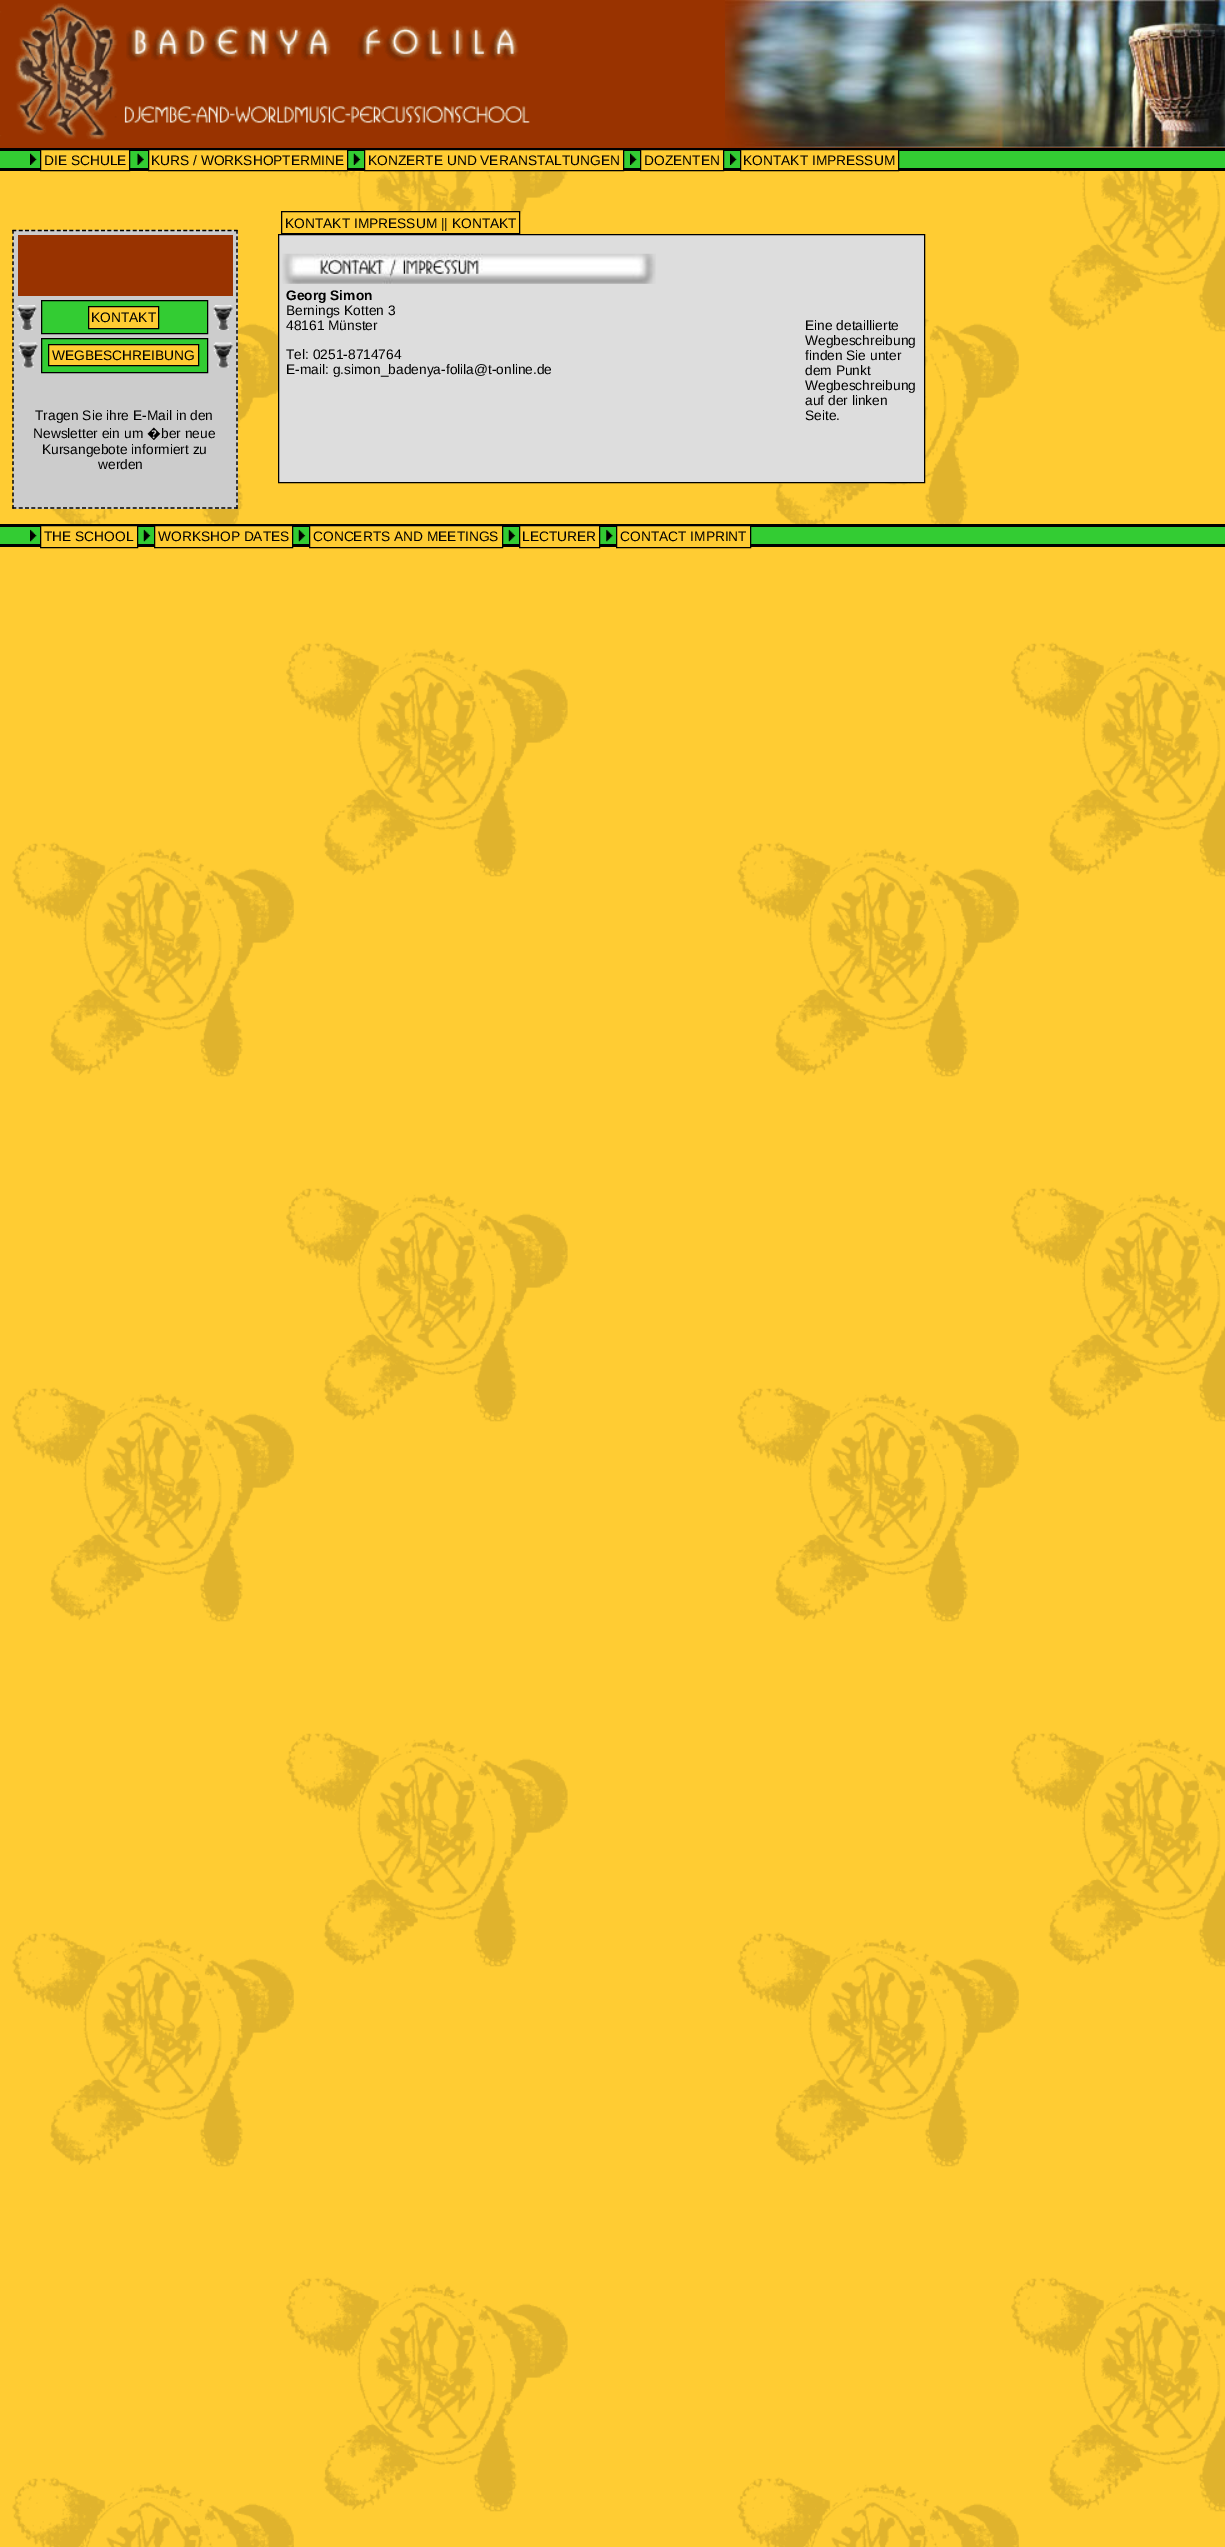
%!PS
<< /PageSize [1225 2547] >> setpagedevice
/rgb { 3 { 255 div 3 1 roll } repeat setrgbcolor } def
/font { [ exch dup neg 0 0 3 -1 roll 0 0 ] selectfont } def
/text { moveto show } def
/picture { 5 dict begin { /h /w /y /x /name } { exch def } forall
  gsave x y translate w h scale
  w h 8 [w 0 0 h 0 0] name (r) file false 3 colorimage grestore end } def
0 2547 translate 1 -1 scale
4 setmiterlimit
255 204 51 rgb
0 0 1225 2547 rectfill
(img_01.rgb) 12 171 1213 2376 picture
153 51 0 rgb
0 0 1225 148 rectfill
(img_02.rgb) 0 3 530 137 picture
(img_03.rgb) 725 0 500 148 picture
51 204 51 rgb
0 151 1225 17 rectfill
0 0 0 rgb
0 148 1225 3 rectfill
0 168 1225 3 rectfill
(img_04.rgb) 30 153 7 12 picture
255 204 51 rgb
40.5 149.5 moveto 89 0 rlineto 0 21 rlineto -89 0 rlineto closepath gsave fill grestore
0 0 0 rgb
stroke
(img_05.rgb) 137 153 7 12 picture
255 204 51 rgb
148.5 149.5 moveto 199 0 rlineto 0 21 rlineto -199 0 rlineto closepath gsave fill grestore
0 0 0 rgb
stroke
(img_06.rgb) 353 153 8 12 picture
255 204 51 rgb
364.5 149.5 moveto 259 0 rlineto 0 21 rlineto -259 0 rlineto closepath gsave fill grestore
0 0 0 rgb
stroke
(img_07.rgb) 630 153 7 12 picture
255 204 51 rgb
640.5 149.5 moveto 83 0 rlineto 0 21 rlineto -83 0 rlineto closepath gsave fill grestore
0 0 0 rgb
stroke
(img_04.rgb) 730 153 7 12 picture
255 204 51 rgb
740.5 149.5 moveto 158 0 rlineto 0 21 rlineto -158 0 rlineto closepath gsave fill grestore
0 0 0 rgb
stroke
204 204 204 rgb
13 230 225 279 rectfill
0 0 0 rgb
1.2 setlinewidth
[3.75 2.58] 0 setdash
12.5 230.5 moveto 225 0 rlineto stroke
[3.75 2.5] 0 setdash
237 230 moveto 0 279 rlineto stroke
[3.75 2.58] 0 setdash
12.5 508 moveto 225 0 rlineto stroke
[3.75 2.5] 0 setdash
13 230 moveto 0 279 rlineto stroke
153 51 0 rgb
18 235 215 61 rectfill
(img_08.rgb) 17 305 20 25 picture
51 204 51 rgb
41.5 300.5 moveto 166 0 rlineto 0 33 rlineto -166 0 rlineto closepath gsave fill grestore
0 0 0 rgb
1 setlinewidth
[] 0 setdash
stroke
255 204 51 rgb
88.5 306.5 moveto 70 0 rlineto 0 22 rlineto -70 0 rlineto closepath gsave fill grestore
0 0 0 rgb
stroke
(img_09.rgb) 213 305 20 25 picture
(img_10.rgb) 18 342 20 26 picture
51 204 51 rgb
41.5 338.5 moveto 166 0 rlineto 0 34 rlineto -166 0 rlineto closepath gsave fill grestore
0 0 0 rgb
stroke
255 204 51 rgb
48.5 344.5 moveto 150 0 rlineto 0 21 rlineto -150 0 rlineto closepath gsave fill grestore
0 0 0 rgb
stroke
(img_10.rgb) 213 342 20 26 picture
255 204 51 rgb
361 212 158 21 rectfill
0 0 0 rgb
281.5 211.5 238 22 rectstroke
221 221 221 rgb
278.5 234.5 moveto 646 0 rlineto 0 248 rlineto -646 0 rlineto closepath gsave fill grestore
0 0 0 rgb
stroke
(img_11.rgb) 282 253 374 31 picture
51 204 51 rgb
0 527 1225 17 rectfill
0 0 0 rgb
0 524 1225 3 rectfill
0 544 1225 3 rectfill
(img_12.rgb) 30 529 7 13 picture
255 204 51 rgb
40.5 525.5 moveto 97 0 rlineto 0 22 rlineto -97 0 rlineto closepath gsave fill grestore
0 0 0 rgb
stroke
(img_13.rgb) 143 529 8 13 picture
255 204 51 rgb
154.5 525.5 moveto 138 0 rlineto 0 22 rlineto -138 0 rlineto closepath gsave fill grestore
0 0 0 rgb
stroke
(img_14.rgb) 298 529 8 13 picture
255 204 51 rgb
309.5 525.5 moveto 193 0 rlineto 0 22 rlineto -193 0 rlineto closepath gsave fill grestore
0 0 0 rgb
stroke
(img_14.rgb) 508 529 8 13 picture
255 204 51 rgb
519.5 525.5 moveto 80 0 rlineto 0 22 rlineto -80 0 rlineto closepath gsave fill grestore
0 0 0 rgb
stroke
(img_15.rgb) 606 529 7 13 picture
255 204 51 rgb
616.5 525.5 moveto 134 0 rlineto 0 22 rlineto -134 0 rlineto closepath gsave fill grestore
0 0 0 rgb
stroke
/LiberationSans-Regular 13.75 font
(DIE SCHULE) 44 165 text
(KURS / WORKSHOPTERMINE) 151 165 text
(KONZERTE UND VERANSTALTUNGEN) 368 165 text
(DOZENTEN) 644 165 text
(KONTAKT IMPRESSUM) 743 165 text
(KONTAKT) 91 322 text
(WEGBESCHREIBUNG) 52 360 text
(Tragen Sie ihre E-Mail in den) 35 420 text
(Newsletter ein um) 33 438 text
/NotoSans-Regular 13.75 font
(�) 147 438 text
/LiberationSans-Regular 13.75 font
(ber neue) 161 438 text
(Kursangebote informiert zu) 42 454 text
(werden) 98 469 text
(KONTAKT IMPRESSUM || KONTAKT) 285 228 text
/LiberationSans-Bold 13.75 font
(Georg Simon) 286 300 text
/LiberationSans-Regular 13.75 font
(Bernings Kotten 3) 286 315 text
(48161 Münster) 286 330 text
(Tel: 0251-8714764) 286 359 text
(E-mail: g.simon_badenya-folila@t-online.de) 286 374 text
(Eine detaillierte) 805 330 text
(Wegbeschreibung) 805 345 text
(finden Sie unter) 805 360 text
(dem Punkt) 805 375 text
(Wegbeschreibung) 805 390 text
(auf der linken) 805 405 text
(Seite.) 805 420 text
(THE SCHOOL) 44 541 text
(WORKSHOP DATES) 158 541 text
(CONCERTS AND MEETINGS) 313 541 text
(LECTURER) 522 541 text
(CONTACT IMPRINT) 620 541 text
showpage
